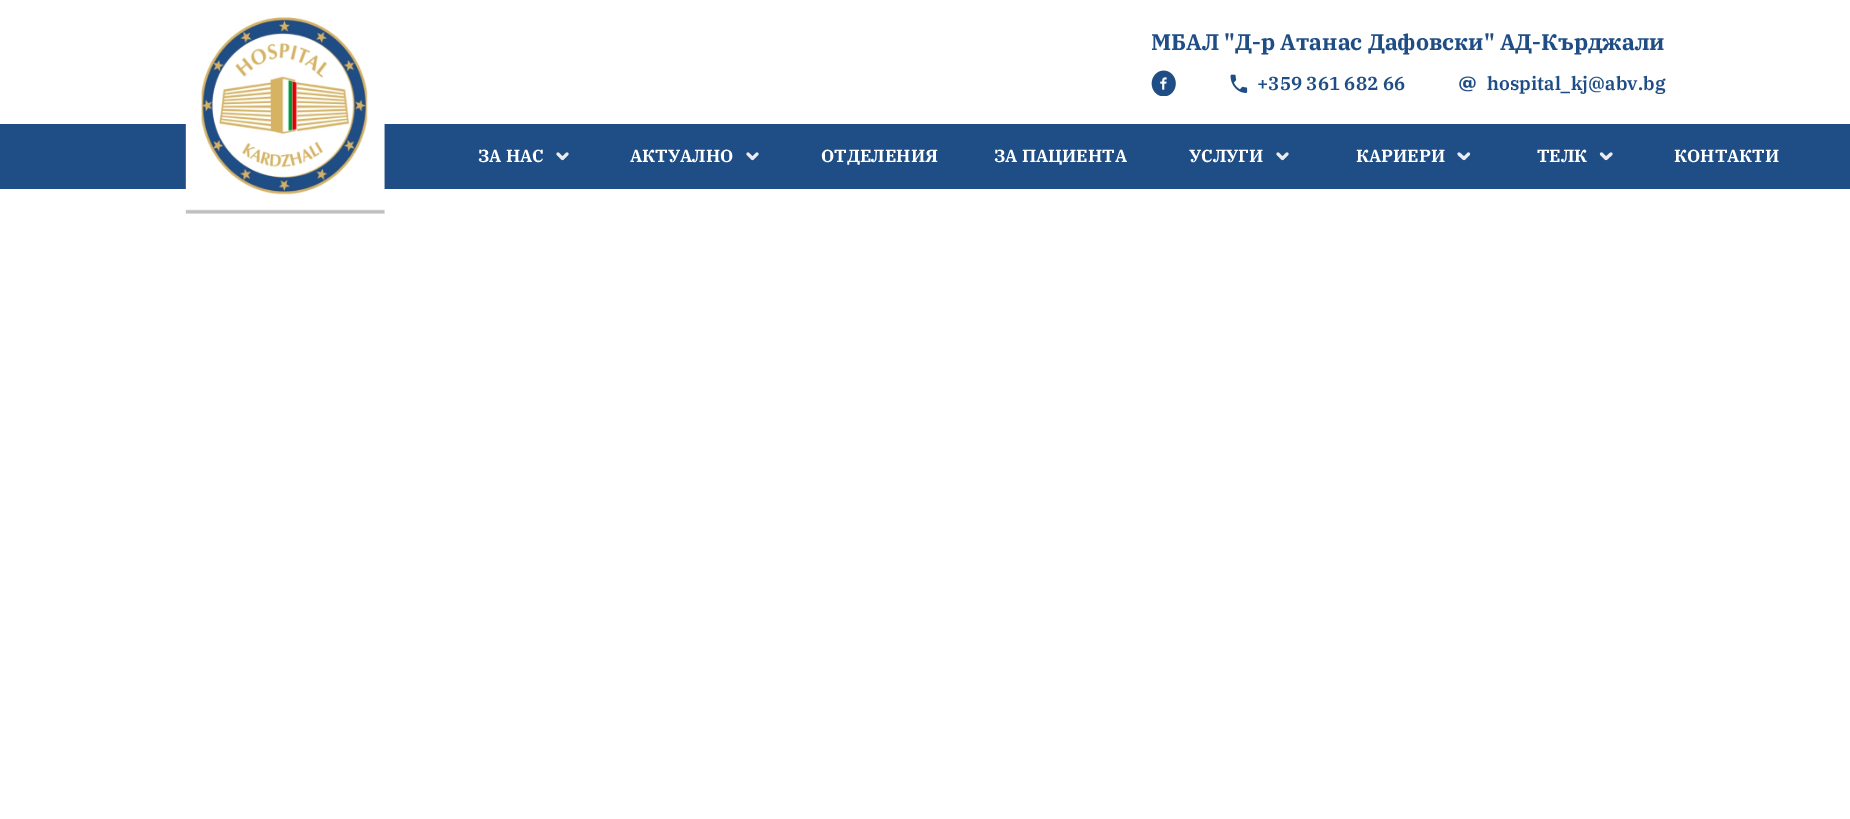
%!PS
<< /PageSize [1850 819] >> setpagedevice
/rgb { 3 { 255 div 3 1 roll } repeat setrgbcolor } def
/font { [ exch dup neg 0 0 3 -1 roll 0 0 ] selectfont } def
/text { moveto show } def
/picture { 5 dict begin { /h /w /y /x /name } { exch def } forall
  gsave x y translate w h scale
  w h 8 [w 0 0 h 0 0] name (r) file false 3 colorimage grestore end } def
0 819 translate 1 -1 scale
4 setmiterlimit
255 255 255 rgb
0 0 1850 819 rectfill
31 77 133 rgb
0 124 1850 65 rectfill
(img_01.rgb) 185 17 200 197 picture
(img_02.rgb) 1151 70 25 26 picture
(img_03.rgb) 1230 74 18 19 picture
(img_04.rgb) 1459 76 17 16 picture
233 237 243 rgb
3.1 setlinewidth
1 setlinecap
1 setlinejoin
567 154 moveto -4.5 4.5 rlineto -4.5 -4.5 rlineto stroke
757 154 moveto -4.5 4.5 rlineto -4.5 -4.5 rlineto stroke
1287 154 moveto -4.5 4.5 rlineto -4.5 -4.5 rlineto stroke
1468.5 154 moveto -4.5 4.5 rlineto -5 -4.5 rlineto stroke
1611 154 moveto -5 4.5 rlineto -4.5 -4.5 rlineto stroke
/IBMPlexSerif-Bold 22.5 font
31 77 133 rgb
(МБАЛ "Д-р Атанас Дафовски" АД-Кърджали) 1151 50 text
/IBMPlexSerif-SemiBold 18.75 font
(+359 361 682 66) 1257 90 text
(hospital_kj@abv.bg) 1487 90 text
/IBMPlexSerif-Bold 17.5 font
255 255 255 rgb
(ЗА НАС) 478 162 text
(АКТУАЛНО) 630 162 text
(ОТДЕЛЕНИЯ) 821 162 text
(ЗА ПАЦИЕНТА) 994 162 text
(УСЛУГИ) 1189 162 text
(КАРИЕРИ) 1356 162 text
(ТЕЛК) 1537 162 text
(КОНТАКТИ) 1674 162 text
showpage
